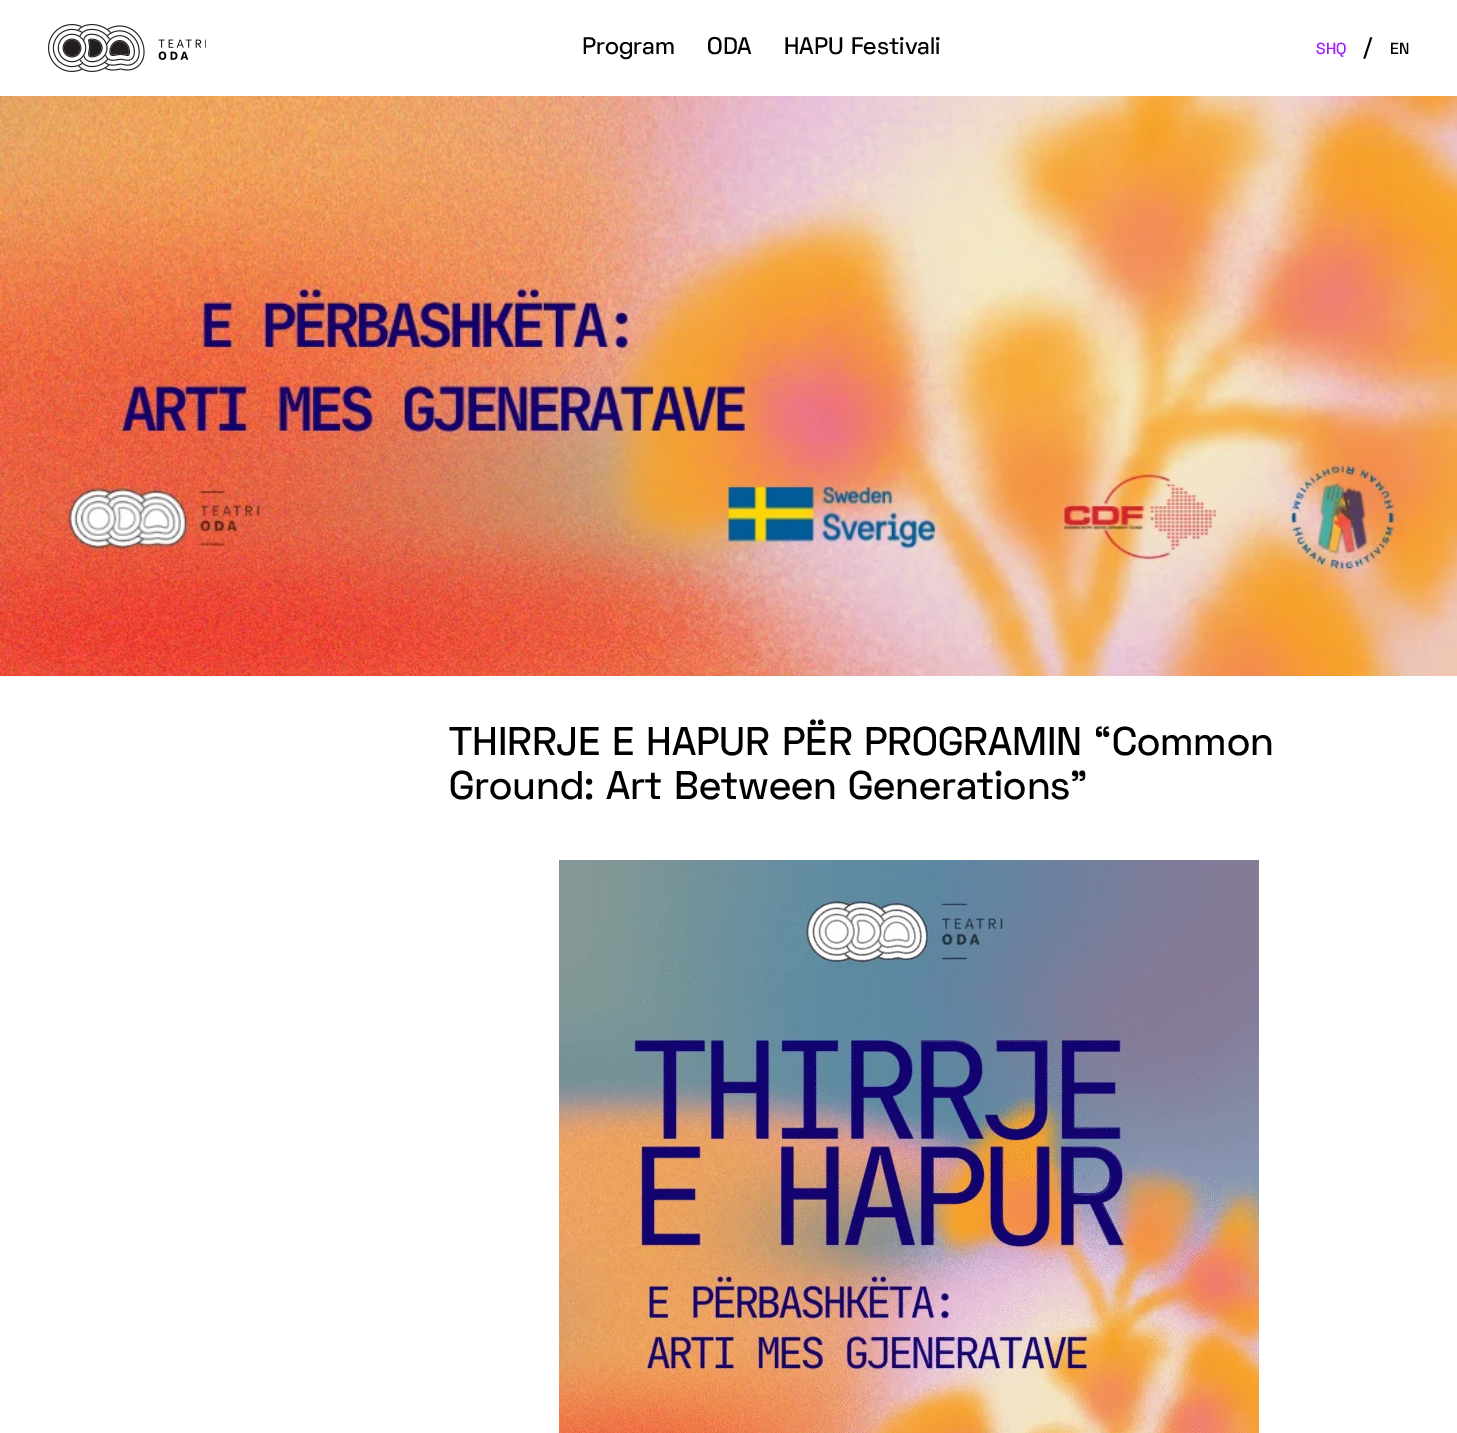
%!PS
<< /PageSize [1457 1433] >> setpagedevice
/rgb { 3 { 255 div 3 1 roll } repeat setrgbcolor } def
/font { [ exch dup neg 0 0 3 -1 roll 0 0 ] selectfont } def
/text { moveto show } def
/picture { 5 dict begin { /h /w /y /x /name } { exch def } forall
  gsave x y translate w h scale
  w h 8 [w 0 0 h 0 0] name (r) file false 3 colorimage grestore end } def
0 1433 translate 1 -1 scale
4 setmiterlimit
255 255 255 rgb
0 0 1457 1433 rectfill
(img_01.rgb) 48 24 158 48 picture
(img_02.rgb) 0 96 1457 580 picture
(img_03.rgb) 559 860 700 573 picture
/SpaceGrotesk-Medium 24 font
0 0 0 rgb
(Program) 582 54 text
(ODA) 707 54 text
(HAPU Festivali) 784 54 text
/SpaceGrotesk-Medium 16 font
157 26 255 rgb
(SHQ) 1316 54 text
/SpaceGrotesk-Medium 24 font
0 0 0 rgb
(/) 1362 54 text
/SpaceGrotesk-Medium 16 font
(EN) 1390 54 text
/SpaceGrotesk-Medium 40 font
(THIRRJE E HAPUR PËR PROGRAMIN “Common) 449 755 text
(Ground: Art Between Generations”) 449 799 text
showpage
